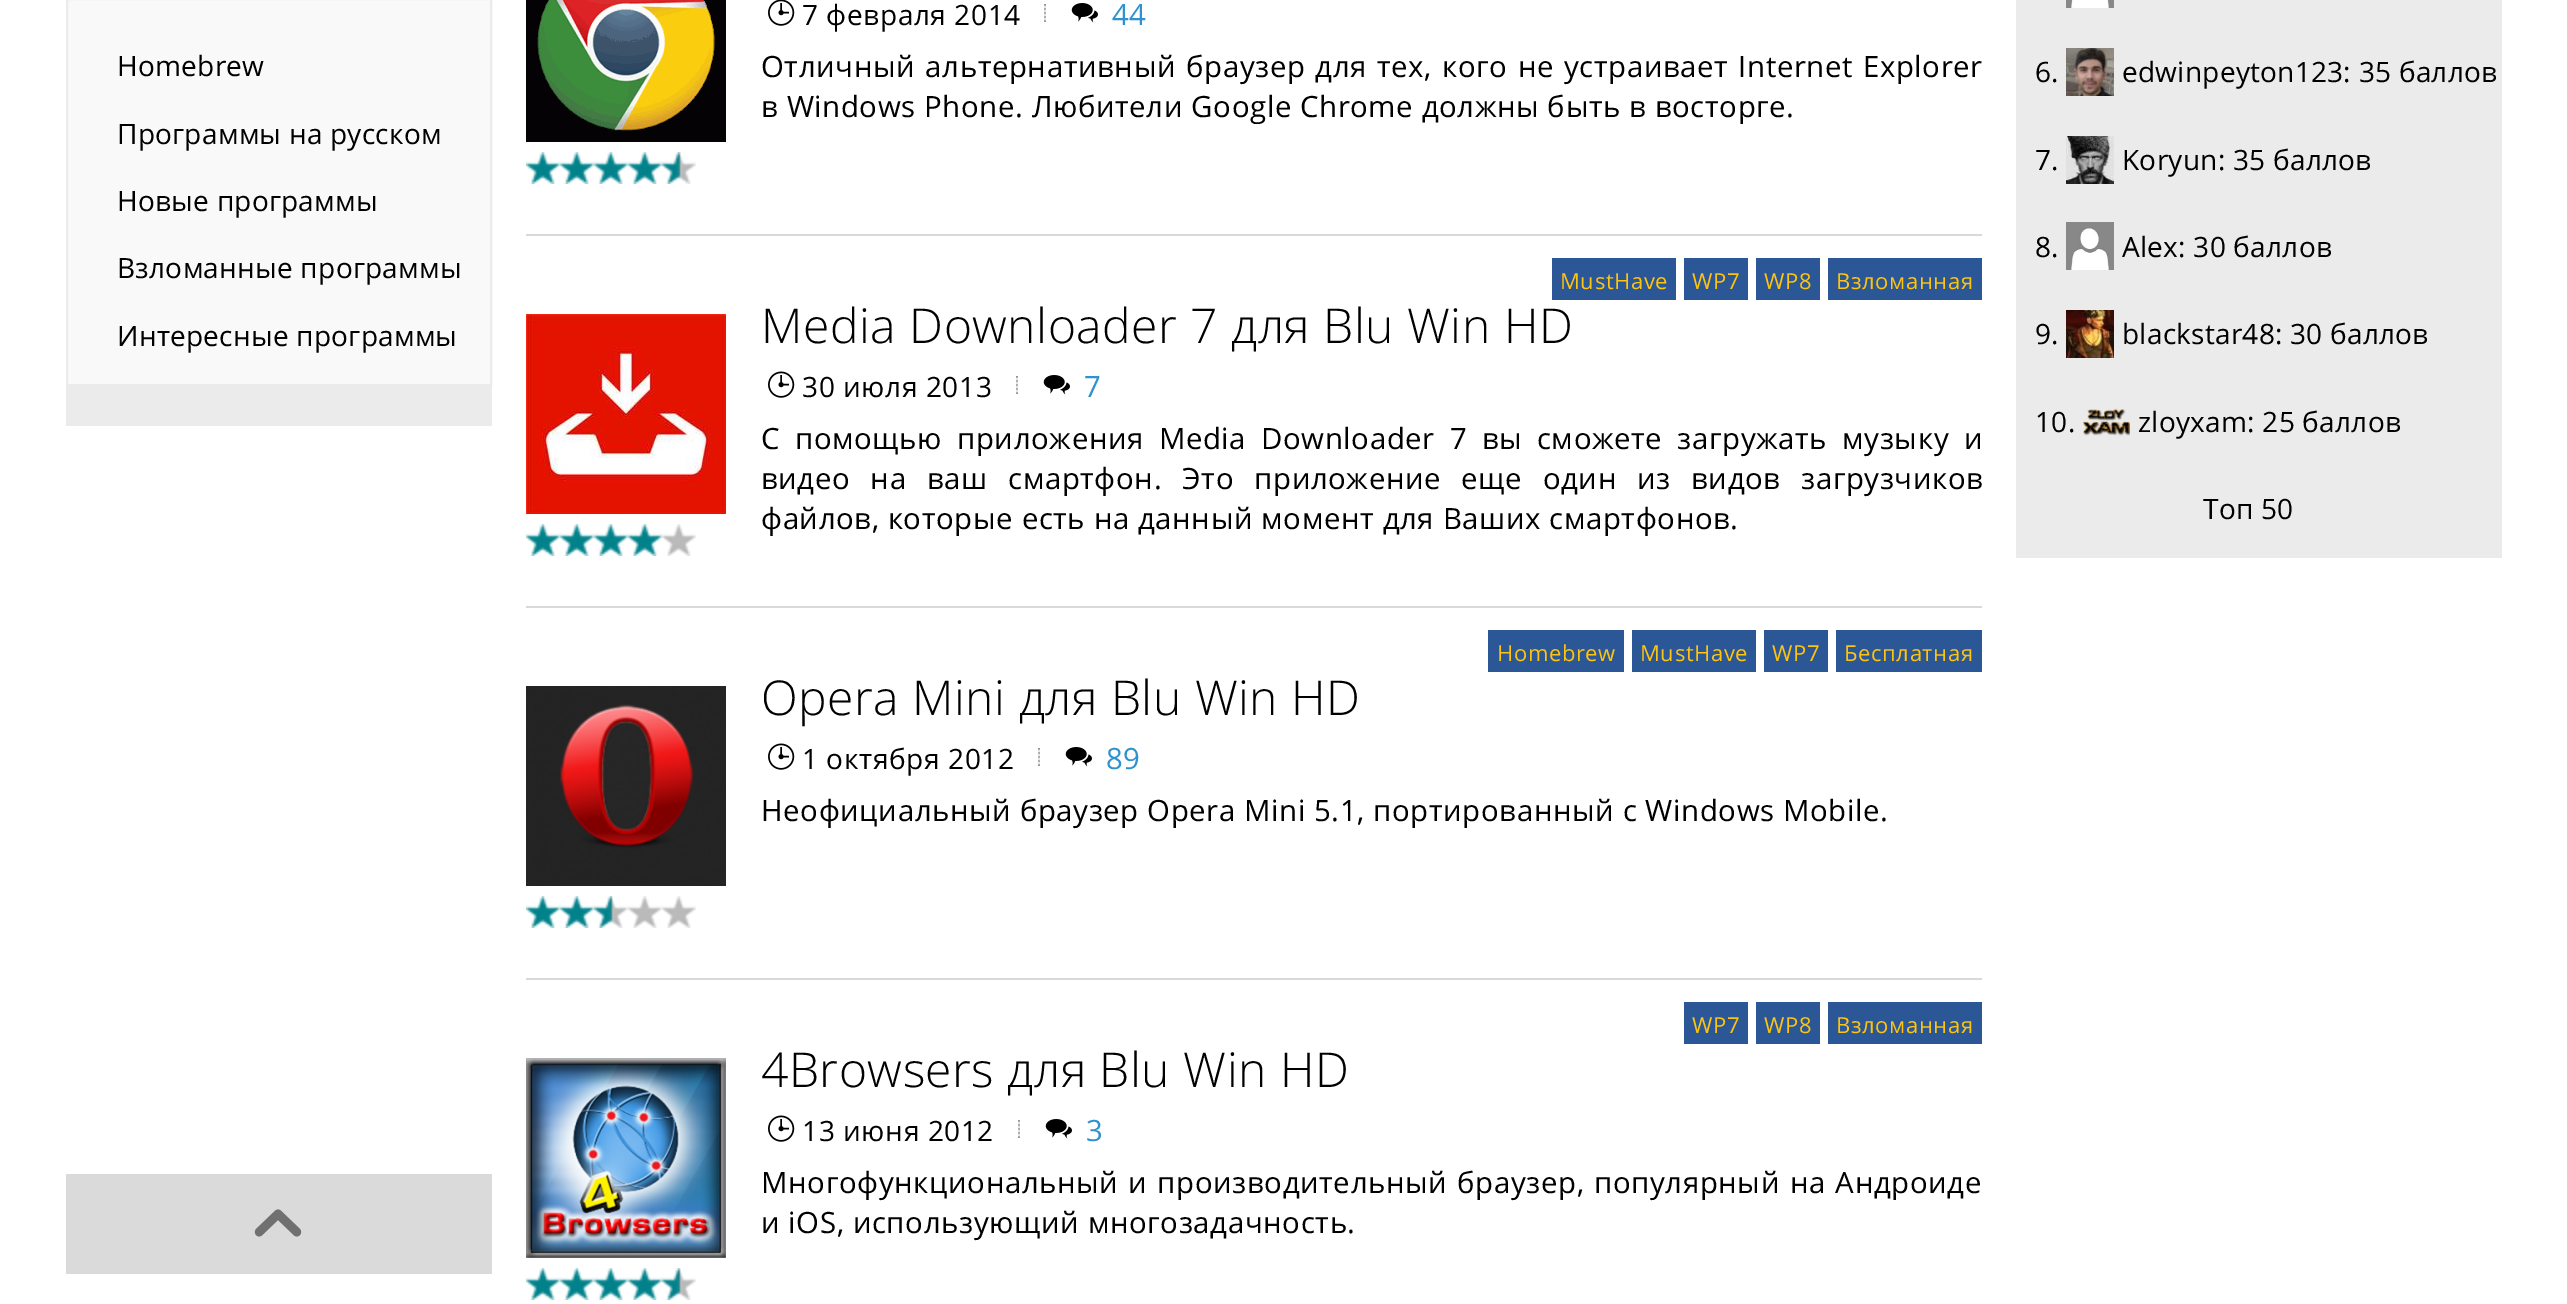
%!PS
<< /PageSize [2567 1304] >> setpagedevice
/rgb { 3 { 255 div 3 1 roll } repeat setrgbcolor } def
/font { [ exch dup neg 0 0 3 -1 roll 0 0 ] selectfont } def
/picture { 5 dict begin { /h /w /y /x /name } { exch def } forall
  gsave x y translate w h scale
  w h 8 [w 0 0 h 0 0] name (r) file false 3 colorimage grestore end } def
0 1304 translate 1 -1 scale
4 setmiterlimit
255 255 255 rgb
0 0 2567 1304 rectfill
235 235 235 rgb
66 386 426 40 rectfill
249 249 249 rgb
67 -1 moveto 424 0 rlineto 0 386 rlineto -424 0 rlineto closepath gsave fill grestore
235 235 235 rgb
2 setlinewidth
stroke
218 218 218 rgb
66 1174 426 100 rectfill
(img_01.rgb) 254 1209 48 28 picture
217 217 217 rgb
526 234 1456 2 rectfill
(img_02.rgb) 526 0 200 142 picture
(img_03.rgb) 526 152 34 32 picture
(img_03.rgb) 560 152 34 32 picture
(img_03.rgb) 594 152 34 32 picture
(img_03.rgb) 628 152 34 32 picture
(img_04.rgb) 662 152 34 32 picture
(img_05.rgb) 768 0 27 26 picture
(img_06.rgb) 1044 4 2 18 picture
(img_07.rgb) 1071 3 27 20 picture
526 606 1456 2 rectfill
43 87 151 rgb
1552 258 124 42 rectfill
1684 258 64 42 rectfill
1756 258 64 42 rectfill
1828 258 154 42 rectfill
(img_08.rgb) 526 314 200 200 picture
(img_03.rgb) 526 524 34 32 picture
(img_03.rgb) 560 524 34 32 picture
(img_03.rgb) 594 524 34 32 picture
(img_03.rgb) 628 524 34 32 picture
(img_09.rgb) 662 524 34 32 picture
(img_10.rgb) 768 371 27 27 picture
(img_06.rgb) 1016 376 2 18 picture
(img_07.rgb) 1043 375 27 20 picture
217 217 217 rgb
526 978 1456 2 rectfill
43 87 151 rgb
1488 630 136 42 rectfill
1632 630 124 42 rectfill
1764 630 64 42 rectfill
1836 630 146 42 rectfill
(img_11.rgb) 526 686 200 200 picture
(img_03.rgb) 526 896 34 32 picture
(img_03.rgb) 560 896 34 32 picture
(img_04.rgb) 594 896 34 32 picture
(img_09.rgb) 628 896 34 32 picture
(img_09.rgb) 662 896 34 32 picture
(img_10.rgb) 768 743 27 27 picture
(img_06.rgb) 1038 748 2 18 picture
(img_07.rgb) 1065 747 27 20 picture
1684 1002 64 42 rectfill
1756 1002 64 42 rectfill
1828 1002 154 42 rectfill
(img_12.rgb) 526 1058 200 200 picture
(img_03.rgb) 526 1268 34 32 picture
(img_03.rgb) 560 1268 34 32 picture
(img_03.rgb) 594 1268 34 32 picture
(img_03.rgb) 628 1268 34 32 picture
(img_04.rgb) 662 1268 34 32 picture
(img_10.rgb) 768 1115 27 27 picture
(img_06.rgb) 1018 1120 2 18 picture
(img_07.rgb) 1045 1119 27 20 picture
235 235 235 rgb
2016 0 486 558 rectfill
(img_13.rgb) 2066 0 48 8 picture
(img_14.rgb) 2066 48 48 48 picture
(img_15.rgb) 2066 136 48 48 picture
(img_16.rgb) 2066 222 48 48 picture
(img_17.rgb) 2066 310 48 48 picture
(img_18.rgb) 2083 408 47 28 picture
/OpenSans-Regular 28 font
0 0 0 rgb
117 76 moveto 0.25 0 (Homebrew) ashow
117 144 moveto 0.25 0 (Программы на русском) ashow
117 211 moveto 0.25 0 (Новые программы) ashow
117 278 moveto 0.25 0 (Взломанные программы) ashow
117 346 moveto 0.25 0 (Интересные программы) ashow
802 25 moveto 0.6 0 (7 февраля 2014) ashow
/OpenSans-Regular 29.35 font
46 146 207 rgb
1112 25 moveto 0.6 0 (44) ashow
0 0 0 rgb
761 77 moveto 1.75 0 32 0.6 0 (Отличный альтернативный браузер для тех, кого не устраивает Internet Explorer) awidthshow
761 117 moveto 0.6 0 (в Windows Phone. Любители Google Chrome должны быть в восторге.) ashow
/OpenSans-Regular 22 font
255 196 13 rgb
1560 289 moveto 0.6 0 (MustHave) ashow
1692 289 moveto 0.6 0 (WP7) ashow
1764 289 moveto 0.6 0 (WP8) ashow
1836 289 moveto 0.6 0 (Взломанная) ashow
/OpenSans-Light 48 font
0 0 0 rgb
761 343 moveto 0.5 0 (Media Downloader 7 для Blu Win HD) ashow
/OpenSans-Regular 28 font
802 397 moveto 0.6 0 (30 июля 2013) ashow
/OpenSans-Regular 29.35 font
46 146 207 rgb
1084 397 moveto 0.6 0 (7) ashow
0 0 0 rgb
761 449 moveto 6.5 0 32 0.6 0 (C помощью приложения Media Downloader 7 вы сможете загружать музыку и) awidthshow
761 489 moveto 12 0 32 0.6 0 (видео на ваш смартфон. Это приложение еще один из видов загрузчиков) awidthshow
761 529 moveto 0.6 0 (файлов, которые есть на данный момент для Ваших смартфонов.) ashow
/OpenSans-Regular 22 font
255 196 13 rgb
1497 661 moveto 0.6 0 (Homebrew) ashow
1640 661 moveto 0.6 0 (MustHave) ashow
1772 661 moveto 0.6 0 (WP7) ashow
1844 661 moveto 0.6 0 (Бесплатная) ashow
/OpenSans-Light 48 font
0 0 0 rgb
761 715 moveto 0.5 0 (Opera Mini для Blu Win HD) ashow
/OpenSans-Regular 28 font
802 769 moveto 0.6 0 (1 октября 2012) ashow
/OpenSans-Regular 29.35 font
46 146 207 rgb
1106 769 moveto 0.6 0 (89) ashow
0 0 0 rgb
761 821 moveto 0.6 0 (Неофициальный браузер Opera Mini 5.1, портированный с Windows Mobile.) ashow
/OpenSans-Regular 22 font
255 196 13 rgb
1692 1033 moveto 0.6 0 (WP7) ashow
1764 1033 moveto 0.6 0 (WP8) ashow
1836 1033 moveto 0.6 0 (Взломанная) ashow
/OpenSans-Light 48 font
0 0 0 rgb
761 1087 moveto 0.5 0 (4Browsers для Blu Win HD) ashow
/OpenSans-Regular 28 font
802 1141 moveto 0.6 0 (13 июня 2012) ashow
/OpenSans-Regular 29.35 font
46 146 207 rgb
1086 1141 moveto 0.6 0 (3) ashow
0 0 0 rgb
761 1193 moveto 1.5 0 32 0.6 0 (Многофункциональный и производительный браузер, популярный на Андроиде) awidthshow
761 1233 moveto 0.6 0 (и iOS, использующий многозадачность.) ashow
/OpenSans-Regular 28 font
2035 82 moveto 0.25 0 (6.) ashow
2122 82 moveto 0.25 0 (edwinpeyton123: 35 баллов) ashow
2035 170 moveto 0.25 0 (7.) ashow
2122 170 moveto 0.25 0 (Koryun: 35 баллов) ashow
2035 257 moveto 0.25 0 (8.) ashow
2122 257 moveto 0.25 0 (Alex: 30 баллов) ashow
2035 344 moveto 0.25 0 (9.) ashow
2122 344 moveto 0.25 0 (blackstar48: 30 баллов) ashow
2035 432 moveto 0.25 0 (10.) ashow
2138 432 moveto 0.25 0 (zloyxam: 25 баллов) ashow
2203 519 moveto 0.25 0 (Топ 50) ashow
showpage
